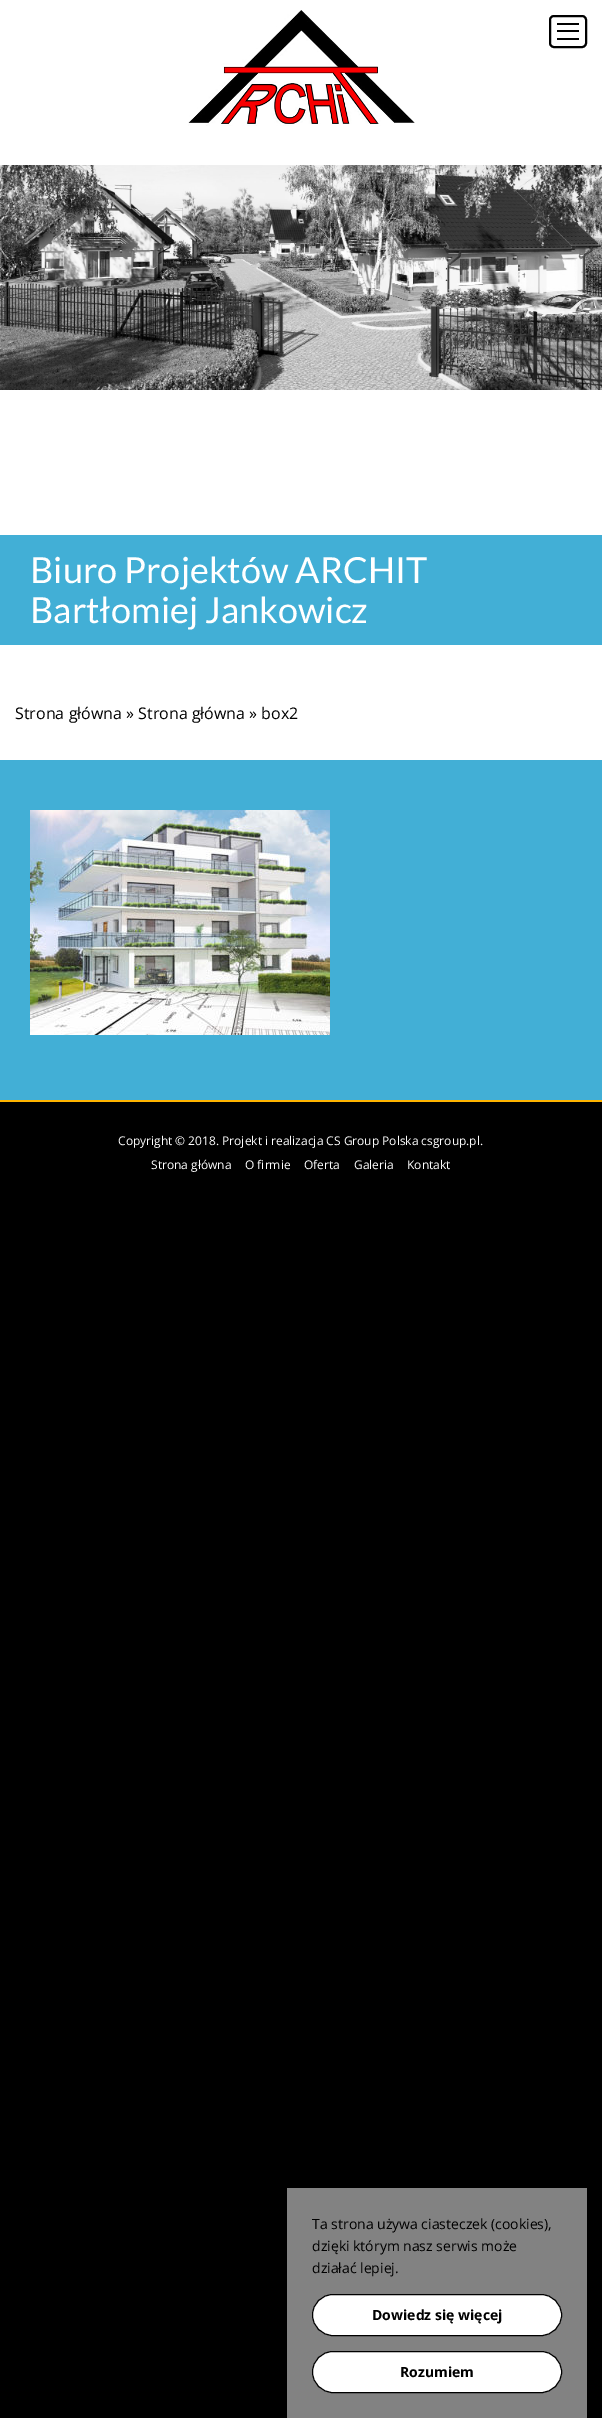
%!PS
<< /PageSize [602 2418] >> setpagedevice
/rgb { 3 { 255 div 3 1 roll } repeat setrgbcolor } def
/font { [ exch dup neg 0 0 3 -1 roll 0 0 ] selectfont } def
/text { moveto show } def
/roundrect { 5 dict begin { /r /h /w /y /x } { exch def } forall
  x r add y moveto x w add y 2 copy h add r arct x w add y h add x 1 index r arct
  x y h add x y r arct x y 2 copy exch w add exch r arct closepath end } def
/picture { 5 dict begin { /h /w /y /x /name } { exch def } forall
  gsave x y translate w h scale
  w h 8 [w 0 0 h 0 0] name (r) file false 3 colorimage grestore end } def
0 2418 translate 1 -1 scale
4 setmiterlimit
0 0 0 rgb
0 0 602 2418 rectfill
255 255 255 rgb
0 0 602 535 rectfill
(img_01.rgb) 188 10 227 116 picture
0 0 0 rgb
2 setlinewidth
550 16 36 31 4 roundrect stroke
557 23 22 2 rectfill
557 30 22 2 rectfill
557 38 22 2 rectfill
(img_02.rgb) 0 165 602 225 picture
66 175 214 rgb
0 535 602 110 rectfill
0 760 602 340 rectfill
255 180 0 rgb
0 1100 602 2 rectfill
255 255 255 rgb
0 645 602 115 rectfill
(img_03.rgb) 30 810 300 225 picture
130 130 130 rgb
287 2188 300 230 rectfill
255 255 255 rgb
312.5 2294.5 249 41 20.5 roundrect gsave fill grestore
0 0 0 rgb
1 setlinewidth
stroke
255 255 255 rgb
312.5 2351.5 249 41 20.5 roundrect gsave fill grestore
0 0 0 rgb
stroke
/Lato-Regular 36 font
255 255 255 rgb
(Biuro Projektów ARCHIT) 30 583 text
(Bartłomiej Jankowicz) 30 623 text
/OpenSans-Regular 16 font
0 0 0 rgb
(Strona główna » Strona główna » box2) 15 719 text
/OpenSans-Regular 12 font
255 255 255 rgb
(Copyright © 2018. Projekt i realizacja CS Group Polska csgroup.pl.) 118 1145 text
(Strona główna) 151 1169 text
(O firmie) 245 1169 text
(Oferta) 304 1169 text
(Galeria) 354 1169 text
(Kontakt) 407 1169 text
/OpenSans-Regular 14 font
0 0 0 rgb
(Ta strona używa ciasteczek \(cookies\),) 312 2229 text
(dzięki którym nasz serwis może) 312 2251 text
(działać lepiej.) 312 2273 text
/OpenSans-Bold 14 font
(Dowiedz się więcej) 372 2320 text
(Rozumiem) 400 2377 text
showpage
